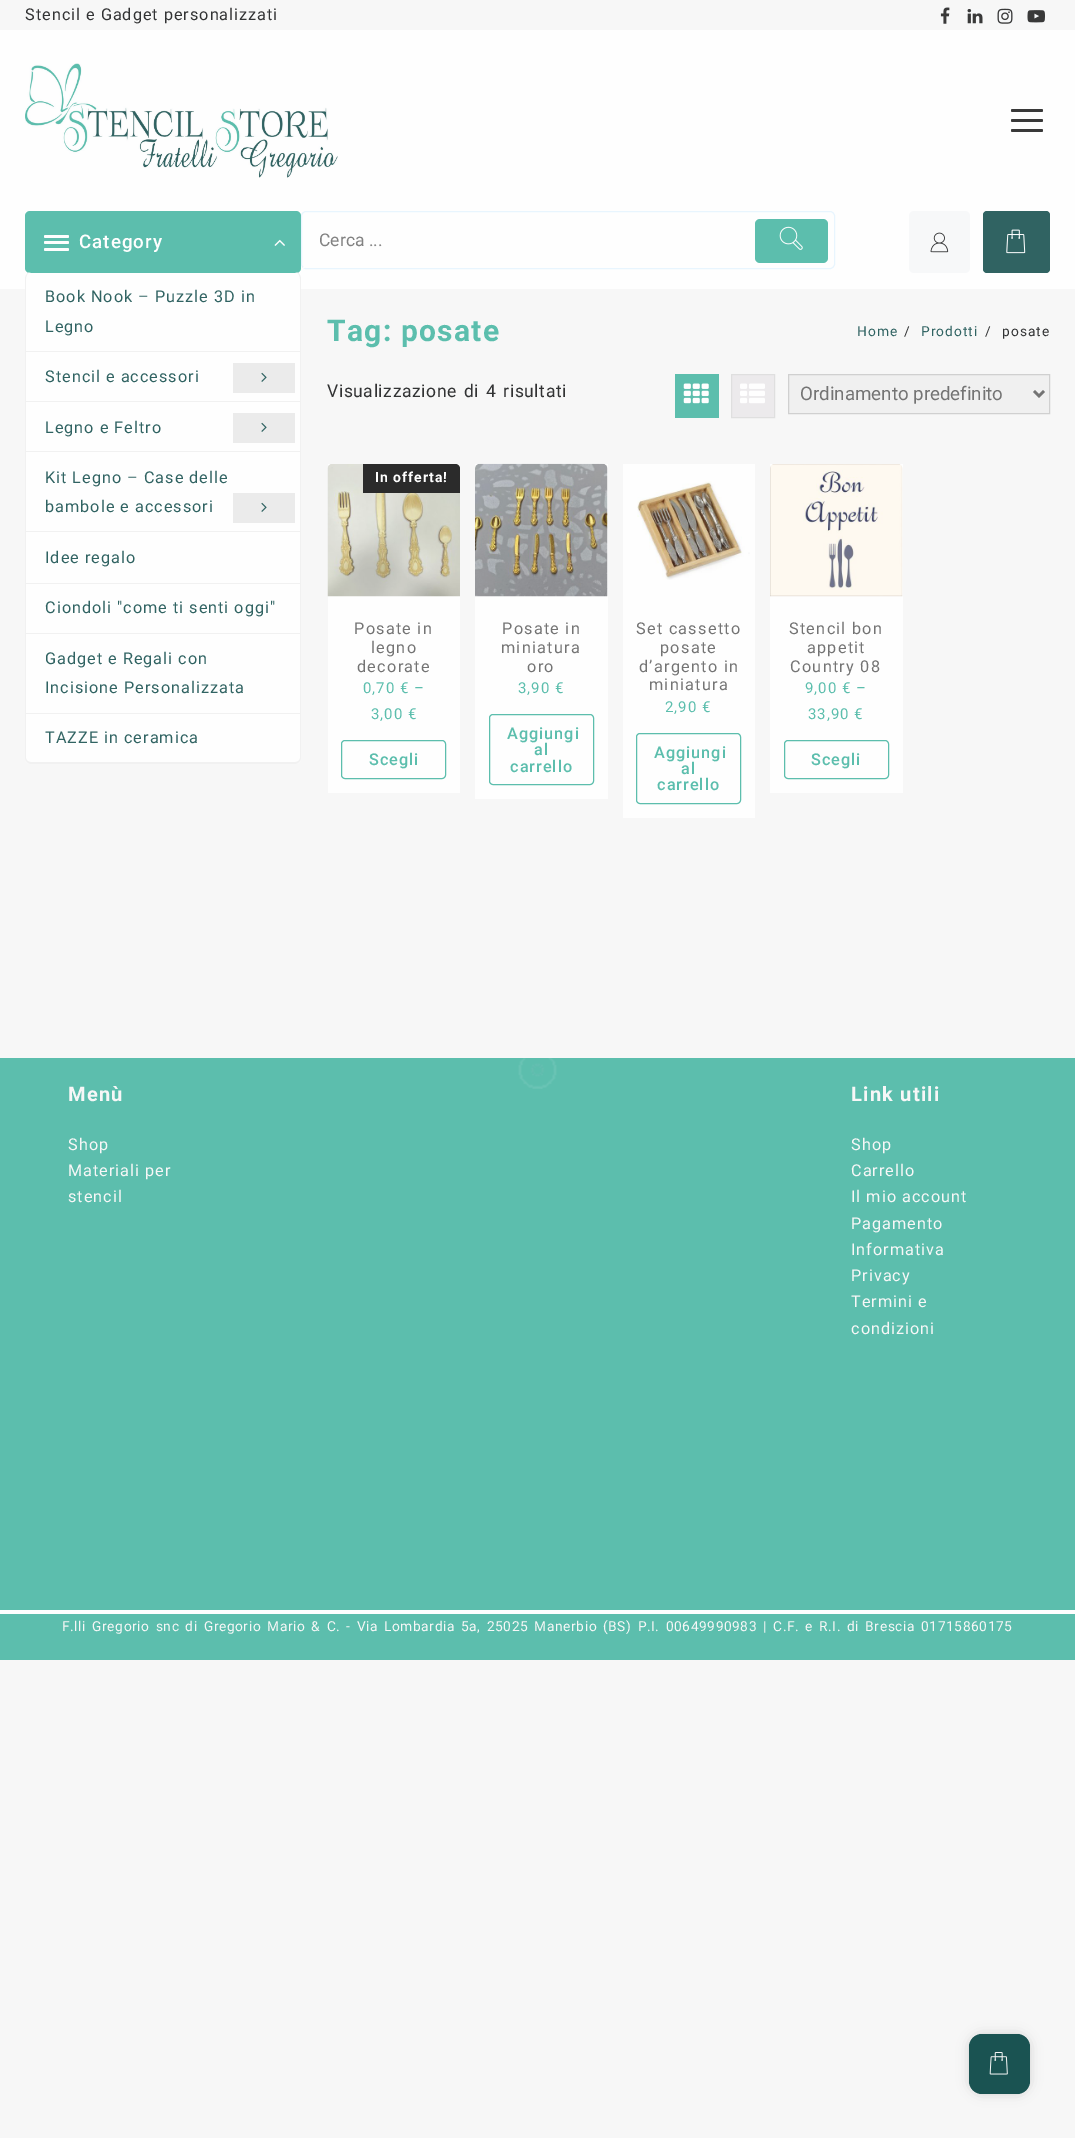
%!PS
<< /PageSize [1075 2138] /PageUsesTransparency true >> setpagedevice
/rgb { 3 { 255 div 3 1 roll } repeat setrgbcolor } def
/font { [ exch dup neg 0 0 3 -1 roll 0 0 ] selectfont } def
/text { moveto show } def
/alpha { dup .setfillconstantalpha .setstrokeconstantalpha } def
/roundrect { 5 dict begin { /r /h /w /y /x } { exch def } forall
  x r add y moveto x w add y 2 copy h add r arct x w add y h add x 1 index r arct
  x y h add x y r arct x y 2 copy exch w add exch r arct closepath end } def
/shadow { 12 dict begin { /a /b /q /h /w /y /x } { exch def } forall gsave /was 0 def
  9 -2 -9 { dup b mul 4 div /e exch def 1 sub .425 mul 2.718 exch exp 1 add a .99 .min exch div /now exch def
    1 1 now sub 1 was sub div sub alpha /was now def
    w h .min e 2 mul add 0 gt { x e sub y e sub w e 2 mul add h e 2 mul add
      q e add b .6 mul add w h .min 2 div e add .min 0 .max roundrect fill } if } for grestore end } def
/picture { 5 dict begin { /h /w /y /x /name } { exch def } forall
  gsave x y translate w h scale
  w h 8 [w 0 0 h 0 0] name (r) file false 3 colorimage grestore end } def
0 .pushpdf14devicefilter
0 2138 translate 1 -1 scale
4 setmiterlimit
247 247 247 rgb
0 0 1075 2138 rectfill
254 254 254 rgb
0 30 1075 259 rectfill
(img_01.rgb) 940 7 10 17 picture
(img_02.rgb) 967 9 16 15 picture
(img_03.rgb) 997 8 16 16 picture
(img_04.rgb) 1027 10 18 13 picture
(img_05.rgb) 25 63 313 115 picture
57 57 57 rgb
1011 109 32 3 1.5 roundrect fill
1011 119 32 3 1.5 roundrect fill
1011 129 32 3 1.5 roundrect fill
92 190 173 rgb
25 211 276 62 5 roundrect fill
254 254 254 rgb
44 235 25 3 1.5 roundrect fill
44 241 25 3 1.5 roundrect fill
44 248 25 3 1.5 roundrect fill
(img_06.rgb) 274 239 11 7 picture
25 273 276 491 6 roundrect fill
241 241 241 rgb
31 272 moveto 264 0 rlineto 3 0 6 3 6 7 rcurveto 0 479 rlineto 0 3 -3 6 -6 6 rcurveto -264 0 rlineto -3 0 -6 -3 -6 -6 rcurveto 0 -479 rlineto 0 -4 3 -7 6 -7 rcurveto closepath 31 272 moveto 264 0 rlineto 3 0 5 3 5 7 rcurveto 0 479 rlineto 0 2 -2 4 -5 4 rcurveto -264 0 rlineto -3 0 -5 -2 -5 -4 rcurveto 0 -479 rlineto 0 -4 2 -7 5 -7 rcurveto closepath eofill
26 351 274 1 rectfill
26 401 274 1 rectfill
235 235 235 rgb
233 363 62 30 rectfill
(img_07.rgb) 261 372 6 10 picture
241 241 241 rgb
26 451 274 1 rectfill
235 235 235 rgb
233 413 62 30 rectfill
(img_07.rgb) 261 422 6 10 picture
241 241 241 rgb
26 531 274 1 rectfill
235 235 235 rgb
233 493 62 30 rectfill
(img_07.rgb) 261 502 6 10 picture
241 241 241 rgb
26 583 274 1 rectfill
26 633 274 1 rectfill
26 713 274 1 rectfill
232 245 254 rgb
301.5 211.5 533 57 4.5 roundrect stroke
254 254 254 rgb
303 267 2 1 rectfill
92 190 173 rgb
755 219 73 44 5 roundrect fill
(img_08.rgb) 779 226 24 24 picture
247 248 249 rgb
909 211 61 62 5 roundrect fill
(img_09.rgb) 930 232 19 21 picture
48 99 98 rgb
983 211 67 62 4 roundrect fill
(img_10.rgb) 1006 229 20 25 picture
92 190 173 rgb
675 374 44 44 rectfill
(img_11.rgb) 683 383 26 21 picture
236 234 236 rgb
731.5 374.5 moveto 43 0 rlineto 0 43 rlineto -43 0 rlineto closepath gsave fill grestore
223 223 223 rgb
stroke
(img_12.rgb) 740 383 25 21 picture
240 240 240 rgb
788.5 374.5 moveto 261 0 rlineto 0 39 rlineto -261 0 rlineto closepath gsave fill grestore
208 208 208 rgb
stroke
116 116 116 rgb
2.5 setlinewidth
1034 391 moveto 5 5 rlineto 5 -5 rlineto stroke
254 254 254 rgb
328 464 132 329 rectfill
(img_13.rgb) 327 464 133 133 picture
43 43 43 rgb
363 464 moveto 92 0 rlineto 3 0 5 2 5 5 rcurveto 0 24 rlineto -97 0 rlineto closepath fill
92 190 173 rgb
1 setlinewidth
341.5 740.5 104 38 3.5 roundrect stroke
254 254 254 rgb
475 464 133 335 rectfill
(img_14.rgb) 475 463 133 134 picture
92 190 173 rgb
489.5 714.5 104 70 3.5 roundrect stroke
254 254 254 rgb
623 464 132 354 rectfill
(img_15.rgb) 637 481 113 99 picture
92 190 173 rgb
636.5 733.5 104 70 3.5 roundrect stroke
254 254 254 rgb
770 464 133 329 rectfill
(img_16.rgb) 770 464 133 133 picture
92 190 173 rgb
784.5 740.5 104 38 3.5 roundrect stroke
0 1058 1075 552 rectfill
254 254 254 rgb
0 1610 1075 4 rectfill
92 190 173 rgb
0 1614 1075 46 rectfill
(img_17.rgb) 518 1058 39 31 picture
183 183 183 rgb
969 2034 61 60 13 6 0.6 shadow
26 83 82 rgb
969 2034 61 60 13 roundrect fill
(img_18.rgb) 989 2052 19 23 picture
/Roboto-Regular 16.25 font
50 51 52 rgb
25 20 moveto 1 0 (Stencil e Gadget personalizzati) ashow
/Roboto-Medium 18.75 font
254 254 254 rgb
79 248 moveto 1 0 (Category) ashow
/Roboto-Regular 16.25 font
48 99 98 rgb
45 302 moveto 1 0 (Book Nook – Puzzle 3D in) ashow
45 332 moveto 1 0 (Legno) ashow
45 382 moveto 1 0 (Stencil e accessori) ashow
45 433 moveto 1 0 (Legno e Feltro) ashow
45 483 moveto 1 0 (Kit Legno – Case delle) ashow
45 512 moveto 1 0 (bambole e accessori) ashow
45 563 moveto 1 0 (Idee regalo) ashow
45 613 moveto 1 0 (Ciondoli "come ti senti oggi") ashow
45 664 moveto 1 0 (Gadget e Regali con) ashow
45 693 moveto 1 0 (Incisione Personalizzata) ashow
45 743 moveto 1 0 (TAZZE in ceramica) ashow
/Roboto-Regular 17.5 font
130 130 130 rgb
(Cerca ...) 319 246 text
/Roboto-Bold 30 font
92 190 173 rgb
327 341 moveto 1.25 0 (Tag: posate) ashow
/Roboto-Regular 13.75 font
48 99 98 rgb
857 336 moveto 1 0 (Home) ashow
50 51 52 rgb
904 336 moveto 1 0 (/) ashow
48 99 98 rgb
921 336 moveto 1 0 (Prodotti) ashow
50 51 52 rgb
985 336 moveto 1 0 (/) ashow
1002 336 moveto 1 0 (posate) ashow
/Roboto-Regular 17.5 font
327 397 moveto 2 0 32 0.6 0 (Visualizzazione di 4 risultati) awidthshow
/Roboto-Regular 18.75 font
116 116 116 rgb
(Ordinamento predefinito) 800 400 text
/Roboto-Bold 14 font
254 254 254 rgb
375 482 moveto 1 0 (In offerta!) ashow
/Roboto-Regular 16.25 font
116 116 116 rgb
354 634 moveto 1.25 0 (Posate in) ashow
371 653 moveto 1.25 0 (legno) ashow
357 672 moveto 1.25 0 (decorate) ashow
/Roboto-Regular 15 font
92 190 173 rgb
363 693 moveto 1 0 (0,70 € –) ashow
371 719 moveto 1 0 (3,00 €) ashow
/Roboto-Medium 16.25 font
369 765 moveto 1 0 (Scegli) ashow
/Roboto-Regular 16.25 font
116 116 116 rgb
502 634 moveto 1.25 0 (Posate in) ashow
501 653 moveto 1.25 0 (miniatura) ashow
527 672 moveto 1.25 0 (oro) ashow
/Roboto-Regular 15 font
92 190 173 rgb
518 693 moveto 1 0 (3,90 €) ashow
/Roboto-Medium 16.25 font
507 739 moveto 1 0 (Aggiungi) ashow
534 755 moveto 1 0 (al) ashow
510 772 moveto 1 0 (carrello) ashow
/Roboto-Regular 16.25 font
116 116 116 rgb
636 634 moveto 1.25 0 (Set cassetto) ashow
660 653 moveto 1.25 0 (posate) ashow
639 672 moveto 1.25 0 (d’argento in) ashow
649 690 moveto 1.25 0 (miniatura) ashow
/Roboto-Regular 15 font
92 190 173 rgb
665 712 moveto 1 0 (2,90 €) ashow
/Roboto-Medium 16.25 font
654 758 moveto 1 0 (Aggiungi) ashow
681 774 moveto 1 0 (al) ashow
657 790 moveto 1 0 (carrello) ashow
/Roboto-Regular 16.25 font
116 116 116 rgb
789 634 moveto 1.25 0 (Stencil bon) ashow
807 653 moveto 1.25 0 (appetit) ashow
790 672 moveto 1.25 0 (Country 08) ashow
/Roboto-Regular 15 font
92 190 173 rgb
805 693 moveto 1 0 (9,00 € –) ashow
808 719 moveto 1 0 (33,90 €) ashow
/Roboto-Medium 16.25 font
811 765 moveto 1 0 (Scegli) ashow
/Roboto-Bold 20 font
247 247 247 rgb
68 1101 moveto 1.25 0 (Menù) ashow
/Roboto-Regular 16.25 font
68 1150 moveto 1 0 (Shop) ashow
68 1176 moveto 1 0 (Materiali per) ashow
68 1202 moveto 1 0 (stencil) ashow
/Roboto-Bold 20 font
851 1101 moveto 1.25 0 (Link utili) ashow
/Roboto-Regular 16.25 font
851 1150 moveto 1 0 (Shop) ashow
851 1176 moveto 1 0 (Carrello) ashow
851 1202 moveto 1 0 (Il mio account) ashow
851 1229 moveto 1 0 (Pagamento) ashow
851 1255 moveto 1 0 (Informativa) ashow
851 1281 moveto 1 0 (Privacy) ashow
851 1307 moveto 1 0 (Termini e) ashow
851 1334 moveto 1 0 (condizioni) ashow
/Roboto-Regular 13.75 font
62 1631 moveto 2 0 32 0.6 0 (F.lli Gregorio snc di Gregorio Mario & C. - Via Lombardia 5a, 25025 Manerbio \(BS\) P.I. 00649990983 | C.F. e R.I. di Brescia 01715860175) awidthshow
.poppdf14devicefilter showpage
